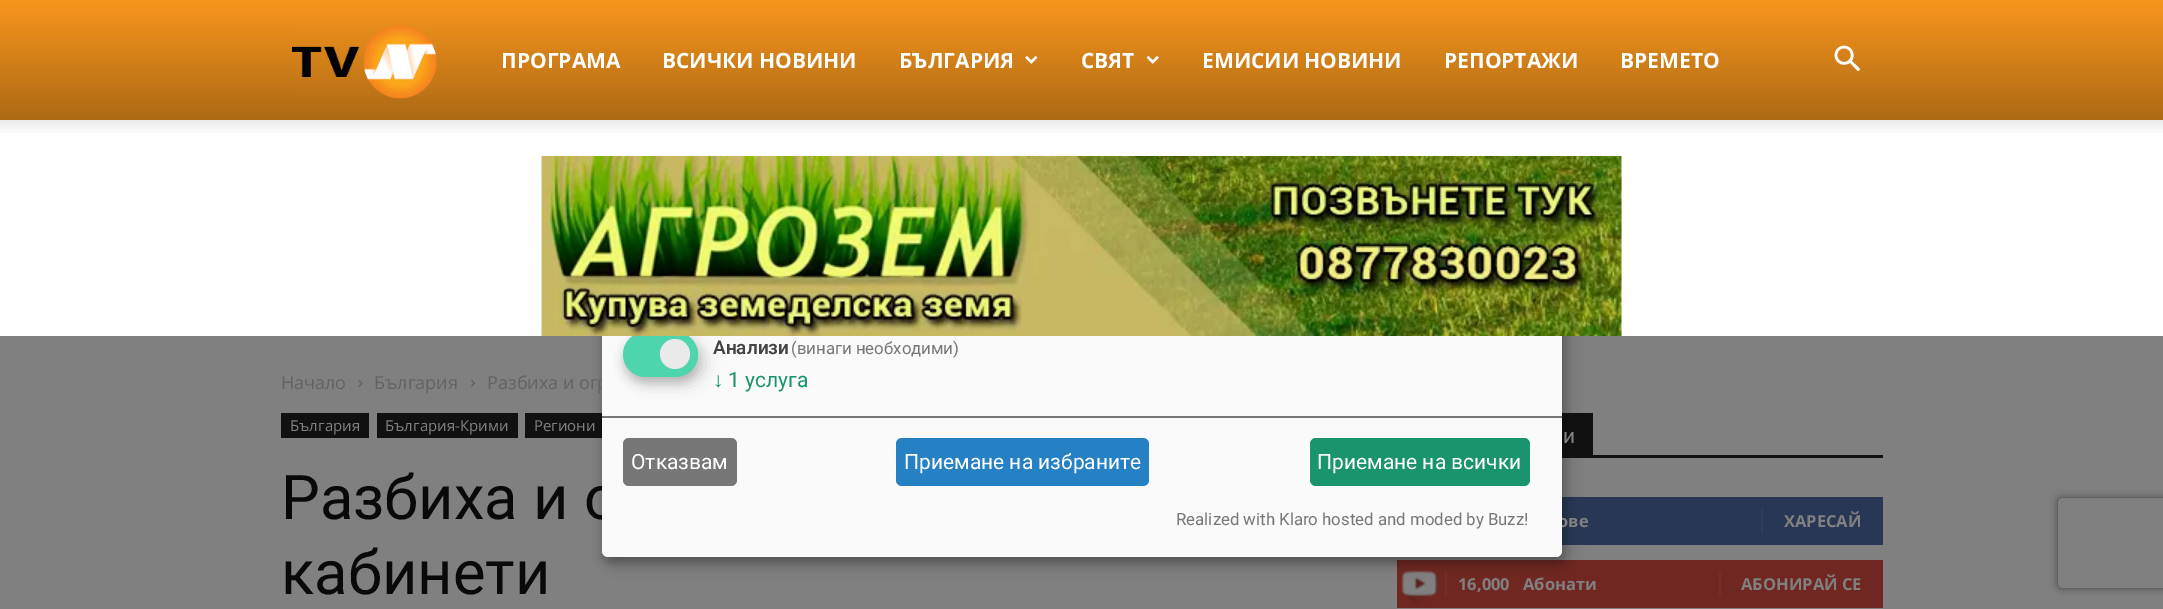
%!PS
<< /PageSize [2163 609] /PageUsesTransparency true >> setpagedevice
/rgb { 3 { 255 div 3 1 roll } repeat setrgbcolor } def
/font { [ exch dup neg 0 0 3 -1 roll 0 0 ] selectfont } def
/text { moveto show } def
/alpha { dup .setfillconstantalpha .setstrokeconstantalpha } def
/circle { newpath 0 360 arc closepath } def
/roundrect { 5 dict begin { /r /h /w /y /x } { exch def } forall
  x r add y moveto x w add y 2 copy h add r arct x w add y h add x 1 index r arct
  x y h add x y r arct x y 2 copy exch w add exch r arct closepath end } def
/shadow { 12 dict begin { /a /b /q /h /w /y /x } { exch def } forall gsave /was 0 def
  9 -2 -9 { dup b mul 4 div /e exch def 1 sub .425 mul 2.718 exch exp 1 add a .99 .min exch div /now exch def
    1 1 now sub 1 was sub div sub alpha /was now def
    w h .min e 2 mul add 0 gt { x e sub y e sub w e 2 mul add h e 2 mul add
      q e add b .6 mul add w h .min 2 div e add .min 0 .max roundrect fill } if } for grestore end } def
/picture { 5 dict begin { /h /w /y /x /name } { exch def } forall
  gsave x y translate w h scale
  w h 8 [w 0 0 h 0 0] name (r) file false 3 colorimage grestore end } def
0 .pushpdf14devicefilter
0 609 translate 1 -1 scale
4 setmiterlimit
128 128 128 rgb
0 0 2163 609 rectfill
(img_07.rgb) 358 380 5 7 picture
(img_08.rgb) 471 380 4 7 picture
17 17 17 rgb
281 413 88 25 rectfill
377 413 141 25 rectfill
525 413 77 25 rectfill
1562 455 321 3 rectfill
1562 413 31 42 rectfill
41 55 86 rgb
1562 497 321 48 rectfill
49 63 90 rgb
1761 509 2 24 rectfill
113 39 33 rgb
1397 560 486 48 rectfill
(img_09.rgb) 1401 570 41 36 picture
114 48 43 rgb
1445 572 2 24 rectfill
1719 572 2 24 rectfill
0 0 0 rgb
609 60 960 504 6 7.5 0.19 shadow
602 59 960 504 6 4.5 0.2 shadow
gsave
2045 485 moveto 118 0 rlineto 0 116 rlineto -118 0 rlineto closepath 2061 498 moveto 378 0 rlineto 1.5 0 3 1.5 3 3 rcurveto 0 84 rlineto 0 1.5 -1.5 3 -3 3 rcurveto -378 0 rlineto -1.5 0 -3 -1.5 -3 -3 rcurveto 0 -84 rlineto 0 -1.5 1.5 -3 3 -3 rcurveto closepath eoclip newpath
64 64 64 rgb
2058 498 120 90 3 4 1 shadow
grestore
/OpenSans-Regular 18 font
98 98 98 rgb
(Начало) 281 389 text
(България) 374 389 text
(Разбиха и огр) 487 389 text
/OpenSans-Regular 15 font
128 128 128 rgb
(България) 290 431 text
(България-Крими) 385 431 text
(Региони) 534 431 text
/Roboto-Regular 61.5 font
9 9 9 rgb
(Разбиха и о) 281 519 text
(кабинети) 281 594 text
/Roboto-Regular 21 font
128 128 128 rgb
(и) 1563 443 text
/OpenSans-Bold 16.5 font
(ове) 1558 527 text
(ХАРЕСАЙ) 1784 527 text
(16,000) 1458 590 text
(Абонати) 1523 590 text
(АБОНИРАЙ СЕ) 1741 590 text
250 250 250 rgb
602 53 960 504 6 roundrect fill
gsave 0 0 moveto 2163 0 rlineto 0 120 rlineto -2163 0 rlineto closepath clip newpath
<< /ShadingType 2 /ColorSpace /DeviceRGB /Coords [1082 0 1082 120] /Extend [true true] /Function << /FunctionType 2 /Domain [0 1] /C0 [0.973 0.588 0.114] /C1 [0.678 0.412 0.078] /N 1 >> >> shfill grestore
(img_04.rgb) 1834 45 26 26 picture
/OpenSans-Bold 21 font
255 255 255 rgb
(ВРЕМЕТО) 1620 68 text
(РЕПОРТАЖИ) 1444 68 text
(ЕМИСИИ НОВИНИ) 1202 68 text
(img_03.rgb) 1146 56 13 8 picture
(СВЯТ) 1081 68 text
(img_02.rgb) 1025 56 13 8 picture
(БЪЛГАРИЯ) 899 68 text
(ВСИЧКИ НОВИНИ) 662 68 text
(ПРОГРАМА) 501 68 text
(img_01.rgb) 292 25 145 74 picture
0 0 0 rgb
630 339 75 45 22.5 7.5 0.15 shadow
50 50 50 rgb
623 338 75 45 22.5 4.5 0.2 shadow
79 213 173 rgb
623 332 75 45 22.5 roundrect fill
255 255 255 rgb
0 120 2163 216 rectfill
(img_05.rgb) 0 120 2163 13 picture
(img_06.rgb) 541 156 1081 180 picture
234 234 234 rgb
675 354 15 circle fill
/Roboto-SemiBold 19 font
68 68 68 rgb
(Анализи) 713 354 text
/Roboto-Regular 16.8 font
119 119 119 rgb
(\(винаги необходими\)) 791 354 text
/LiberationSans-Regular 21 font
26 147 111 rgb
(↓) 713 387 text
/Roboto-Regular 21 font
(1 услуга) 728 387 text
119 119 119 rgb
602 416 960 2 rectfill
623 438 114 48 6 roundrect fill
255 255 255 rgb
(Отказвам) 631 469 text
37 129 196 rgb
896 438 253 48 6 roundrect fill
255 255 255 rgb
(Приемане на избраните) 904 469 text
26 147 111 rgb
1310 438 220 48 6 roundrect fill
255 255 255 rgb
(Приемане на всички) 1317 469 text
/Roboto-Regular 16.8 font
119 119 119 rgb
(Realized with Klaro hosted and moded by Buzz!) 1176 525 text
.poppdf14devicefilter showpage
